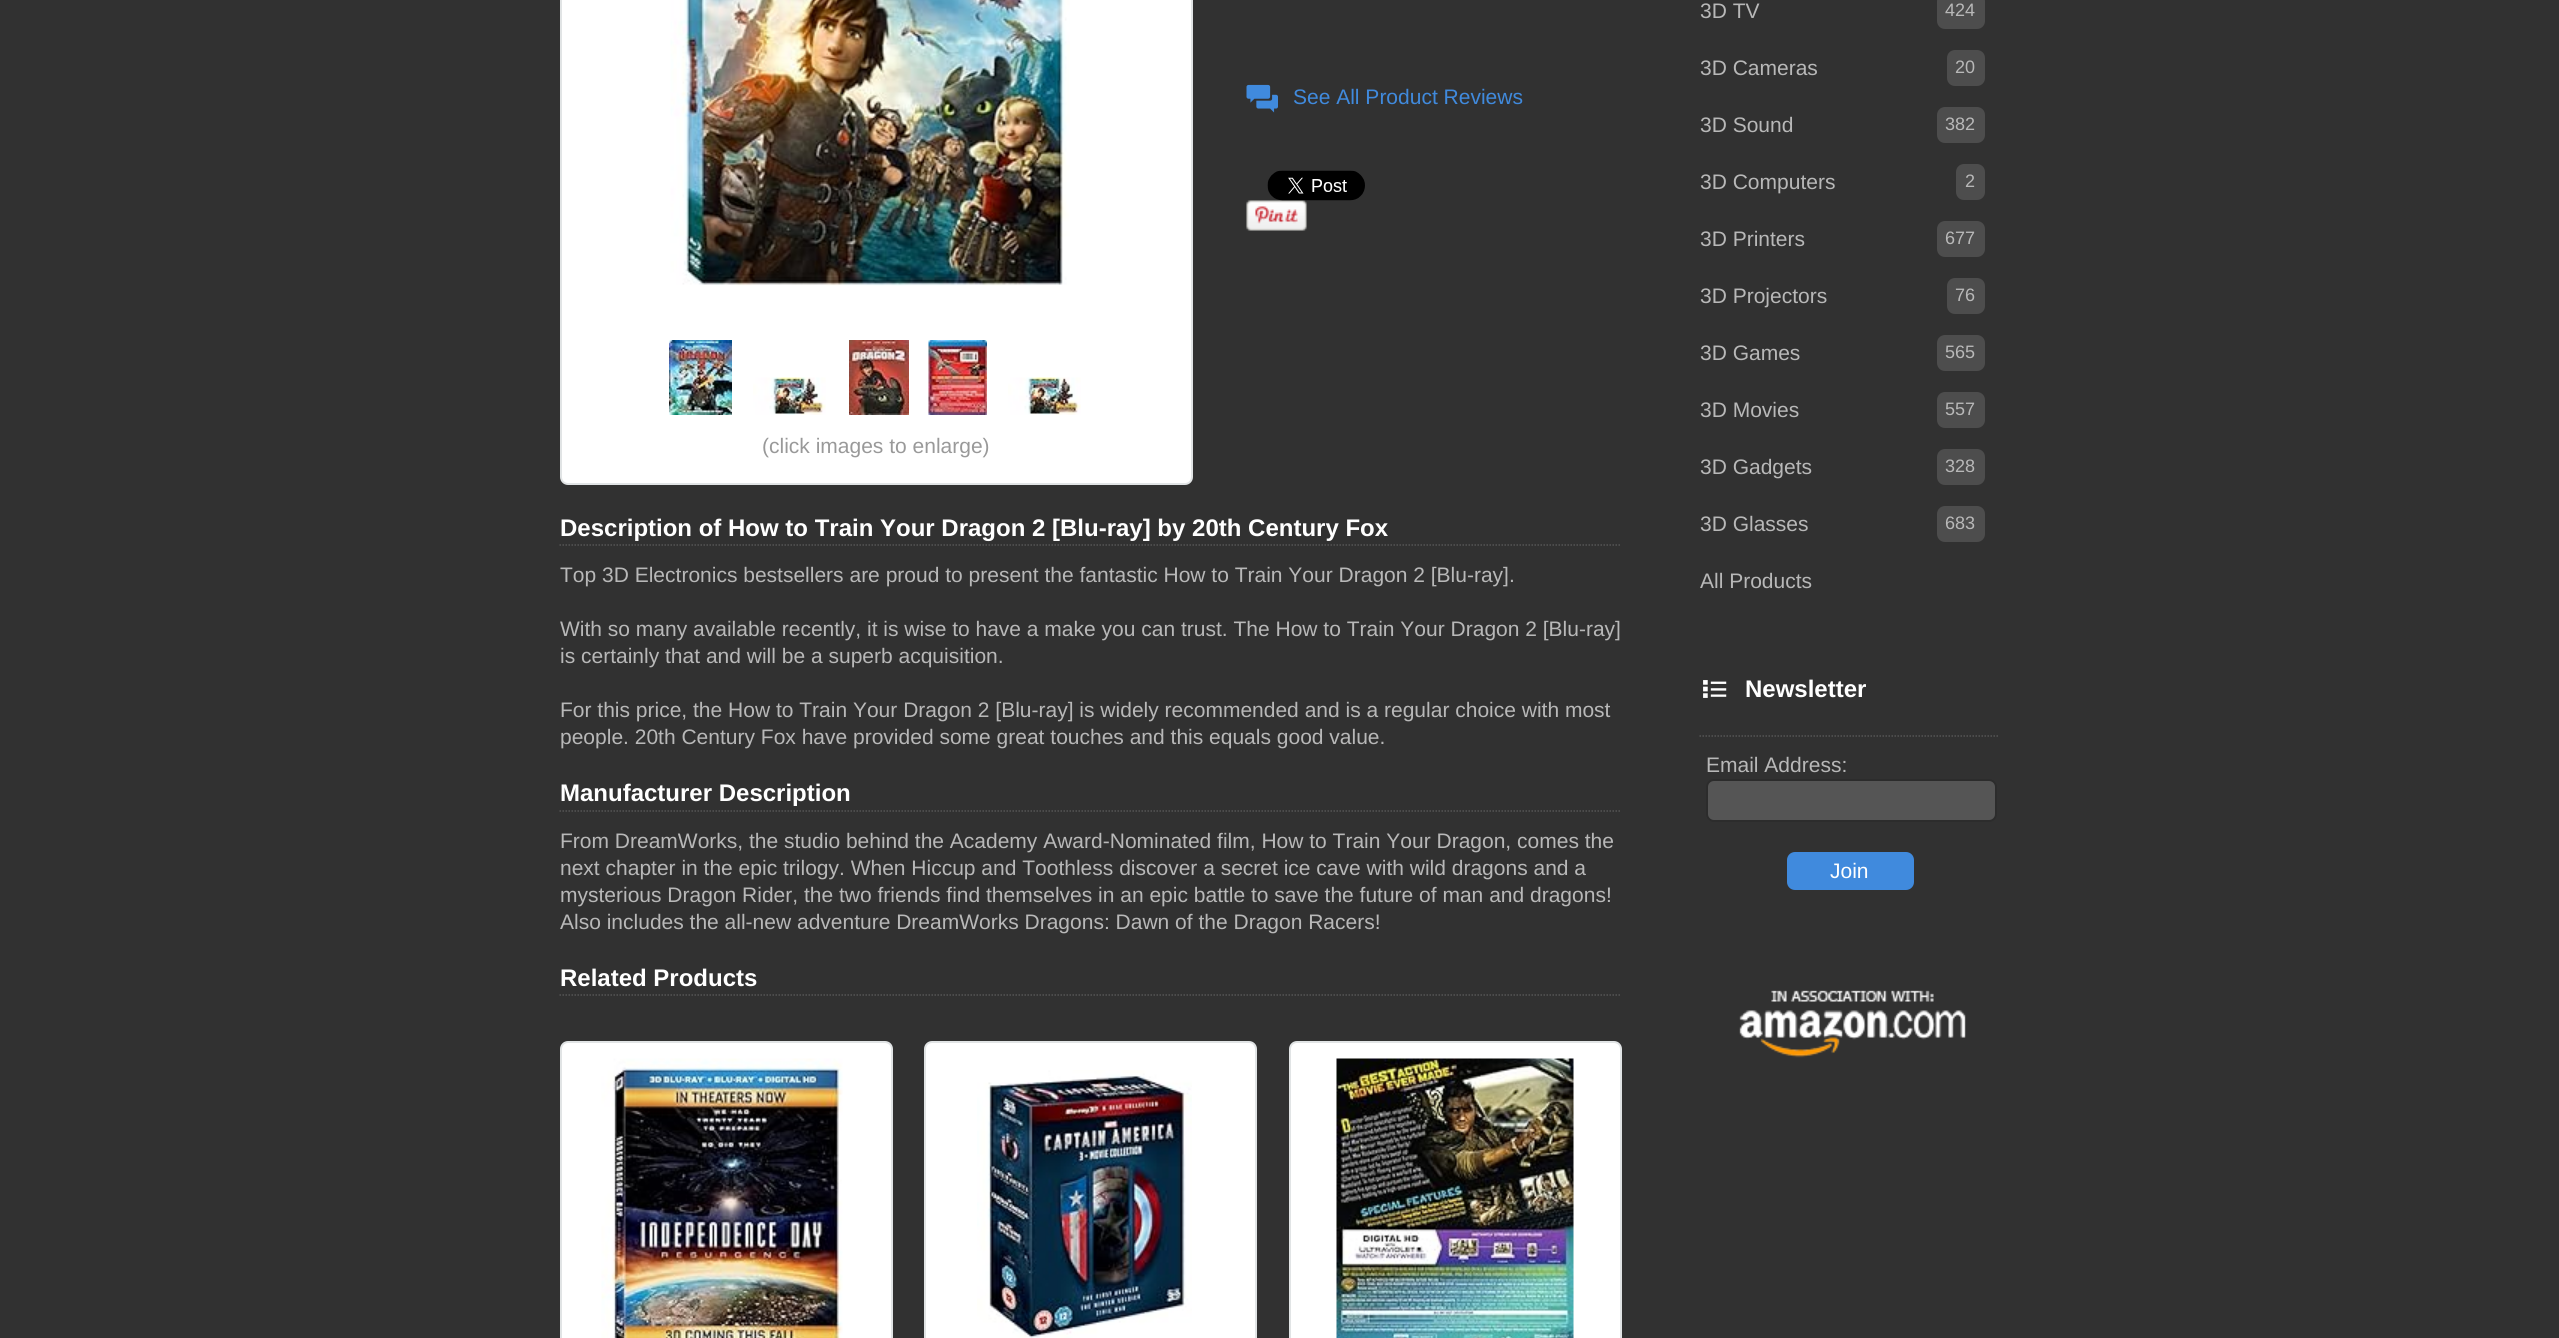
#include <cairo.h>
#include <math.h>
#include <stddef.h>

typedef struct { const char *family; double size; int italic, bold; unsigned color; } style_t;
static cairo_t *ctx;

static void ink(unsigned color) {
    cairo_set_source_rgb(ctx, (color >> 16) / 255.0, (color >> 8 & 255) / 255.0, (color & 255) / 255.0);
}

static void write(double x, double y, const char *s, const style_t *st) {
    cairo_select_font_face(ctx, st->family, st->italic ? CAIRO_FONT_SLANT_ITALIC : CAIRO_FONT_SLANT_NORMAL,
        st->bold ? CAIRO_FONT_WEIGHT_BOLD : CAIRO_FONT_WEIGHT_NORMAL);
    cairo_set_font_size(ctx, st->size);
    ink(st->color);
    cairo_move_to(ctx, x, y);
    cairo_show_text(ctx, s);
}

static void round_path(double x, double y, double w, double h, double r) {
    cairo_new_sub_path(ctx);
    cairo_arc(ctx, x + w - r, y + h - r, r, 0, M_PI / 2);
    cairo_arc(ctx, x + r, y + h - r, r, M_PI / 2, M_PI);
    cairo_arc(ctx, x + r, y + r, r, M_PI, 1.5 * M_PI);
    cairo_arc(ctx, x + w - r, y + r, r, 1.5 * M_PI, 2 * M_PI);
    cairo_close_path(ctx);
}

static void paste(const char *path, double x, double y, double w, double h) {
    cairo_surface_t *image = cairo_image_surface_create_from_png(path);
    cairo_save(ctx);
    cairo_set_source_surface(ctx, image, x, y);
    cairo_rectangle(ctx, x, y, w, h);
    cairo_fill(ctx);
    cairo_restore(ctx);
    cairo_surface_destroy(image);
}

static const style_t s1 = {"Liberation Sans", 21, 0, 0, 0x408add};
static const style_t s2 = {"Liberation Sans", 21, 0, 0, 0x999999};
static const style_t s3 = {"Liberation Sans", 24, 0, 1, 0xffffff};
static const style_t s4 = {"Liberation Sans", 21, 0, 0, 0xb8b8b8};
static const style_t s5 = {"Liberation Sans", 18, 0, 0, 0xb8b8b8};
static const style_t s6 = {"Liberation Sans", 21, 0, 0, 0xffffff};

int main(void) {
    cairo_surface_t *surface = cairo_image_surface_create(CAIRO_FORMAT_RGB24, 2559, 1338);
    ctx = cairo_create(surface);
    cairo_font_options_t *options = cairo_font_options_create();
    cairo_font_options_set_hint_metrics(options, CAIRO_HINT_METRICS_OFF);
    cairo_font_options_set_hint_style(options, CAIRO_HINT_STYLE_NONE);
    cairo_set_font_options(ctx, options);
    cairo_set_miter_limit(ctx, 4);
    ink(0x313131);
    cairo_paint(ctx);
    paste("pic1.png", 1246, 84, 32, 29);
    write(1293, 104, "See All Product Reviews", &s1);
    paste("pic3.png", 1246, 200, 61, 31);
    paste("pic2.png", 1267, 170, 98, 31);
    ink(0xffffff);
    round_path(561, -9, 631, 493, 7);
    cairo_fill_preserve(ctx);
    ink(0xe1e4e5);
    cairo_stroke(ctx);
    paste("pic4.png", 670, 0, 400, 286);
    paste("pic5.png", 669, 340, 63, 75);
    paste("pic6.png", 753, 377, 73, 38);
    paste("pic7.png", 849, 340, 60, 75);
    paste("pic8.png", 928, 340, 59, 75);
    paste("pic9.png", 1008, 377, 73, 38);
    write(762, 453, "(click images to enlarge)", &s2);
    cairo_new_path(ctx);
    cairo_move_to(ctx, 559.5, 545);
    cairo_line_to(ctx, 1621.5, 545);
    ink(0x555555);
    cairo_set_line_width(ctx, 1.5);
    cairo_set_dash(ctx, (double[]){1.5, 1.5}, 2, 0);
    cairo_stroke(ctx);
    write(560, 536, "Description of How to Train Your Dragon 2 [Blu-ray] by 20th Century Fox", &s3);
    write(560, 582, "Top 3D Electronics bestsellers are proud to present the fantastic How to Train Your Dragon 2 [Blu-ray].", &s4);
    write(560, 636, "With so many available recently, it is wise to have a make you can trust. The How to Train Your Dragon 2 [Blu-ray]", &s4);
    write(560, 663, "is certainly that and will be a superb acquisition.", &s4);
    write(560, 717, "For this price, the How to Train Your Dragon 2 [Blu-ray] is widely recommended and is a regular choice with most", &s4);
    write(560, 744, "people. 20th Century Fox have provided some great touches and this equals good value.", &s4);
    cairo_new_path(ctx);
    cairo_move_to(ctx, 559.5, 811);
    cairo_line_to(ctx, 1621.5, 811);
    ink(0x555555);
    cairo_stroke(ctx);
    write(560, 801, "Manufacturer Description", &s3);
    write(560, 848, "From DreamWorks, the studio behind the Academy Award-Nominated film, How to Train Your Dragon, comes the", &s4);
    write(560, 875, "next chapter in the epic trilogy. When Hiccup and Toothless discover a secret ice cave with wild dragons and a", &s4);
    write(560, 902, "mysterious Dragon Rider, the two friends find themselves in an epic battle to save the future of man and dragons!", &s4);
    write(560, 929, "Also includes the all-new adventure DreamWorks Dragons: Dawn of the Dragon Racers!", &s4);
    cairo_new_path(ctx);
    cairo_move_to(ctx, 559.5, 995);
    cairo_line_to(ctx, 1621.5, 995);
    ink(0x555555);
    cairo_stroke(ctx);
    write(560, 986, "Related Products", &s3);
    round_path(561, 1042, 331, 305, 7);
    cairo_fill_preserve(ctx);
    ink(0xe1e4e5);
    cairo_set_line_width(ctx, 2);
    cairo_set_dash(ctx, NULL, 0, 0);
    cairo_stroke(ctx);
    paste("pic10.png", 601, 1058, 242, 280);
    ink(0xffffff);
    round_path(925, 1042, 331, 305, 7);
    cairo_fill_preserve(ctx);
    ink(0xe1e4e5);
    cairo_stroke(ctx);
    paste("pic11.png", 977, 1070, 215, 268);
    ink(0xffffff);
    round_path(1290, 1042, 331, 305, 7);
    cairo_fill_preserve(ctx);
    ink(0xe1e4e5);
    cairo_stroke(ctx);
    paste("pic12.png", 1336, 1058, 238, 280);
    write(1700, 18, "3D TV", &s4);
    ink(0x4d4d4d);
    round_path(1938, -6, 46, 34, 7);
    cairo_fill_preserve(ctx);
    cairo_stroke(ctx);
    write(1945, 16, "424", &s5);
    write(1700, 75, "3D Cameras", &s4);
    ink(0x4d4d4d);
    round_path(1948, 51, 36, 34, 7);
    cairo_fill_preserve(ctx);
    cairo_stroke(ctx);
    write(1955, 73, "20", &s5);
    write(1700, 132, "3D Sound", &s4);
    ink(0x4d4d4d);
    round_path(1938, 108, 46, 34, 7);
    cairo_fill_preserve(ctx);
    cairo_stroke(ctx);
    write(1945, 130, "382", &s5);
    write(1700, 189, "3D Computers", &s4);
    ink(0x4d4d4d);
    round_path(1957, 165, 27, 34, 7);
    cairo_fill_preserve(ctx);
    cairo_stroke(ctx);
    write(1965, 187, "2", &s5);
    write(1700, 246, "3D Printers", &s4);
    ink(0x4d4d4d);
    round_path(1938, 222, 46, 34, 7);
    cairo_fill_preserve(ctx);
    cairo_stroke(ctx);
    write(1945, 244, "677", &s5);
    write(1700, 303, "3D Projectors", &s4);
    ink(0x4d4d4d);
    round_path(1948, 279, 36, 34, 7);
    cairo_fill_preserve(ctx);
    cairo_stroke(ctx);
    write(1955, 301, "76", &s5);
    write(1700, 360, "3D Games", &s4);
    ink(0x4d4d4d);
    round_path(1938, 336, 46, 34, 7);
    cairo_fill_preserve(ctx);
    cairo_stroke(ctx);
    write(1945, 358, "565", &s5);
    write(1700, 417, "3D Movies", &s4);
    ink(0x4d4d4d);
    round_path(1938, 393, 46, 34, 7);
    cairo_fill_preserve(ctx);
    cairo_stroke(ctx);
    write(1945, 415, "557", &s5);
    write(1700, 474, "3D Gadgets", &s4);
    ink(0x4d4d4d);
    round_path(1938, 450, 46, 34, 7);
    cairo_fill_preserve(ctx);
    cairo_stroke(ctx);
    write(1945, 472, "328", &s5);
    write(1700, 531, "3D Glasses", &s4);
    ink(0x4d4d4d);
    round_path(1938, 507, 46, 34, 7);
    cairo_fill_preserve(ctx);
    cairo_stroke(ctx);
    write(1945, 529, "683", &s5);
    write(1700, 588, "All Products", &s4);
    cairo_new_path(ctx);
    cairo_move_to(ctx, 1699.5, 736);
    cairo_line_to(ctx, 1999.5, 736);
    ink(0x555555);
    cairo_set_line_width(ctx, 1.5);
    cairo_set_dash(ctx, (double[]){1.5, 1.5}, 2, 0);
    cairo_stroke(ctx);
    paste("pic13.png", 1703, 680, 24, 18);
    write(1745, 697, "Newsletter", &s3);
    write(1706, 772, "Email Address:", &s4);
    ink(0x555555);
    round_path(1707, 780, 289, 41, 7);
    cairo_fill_preserve(ctx);
    ink(0x2c2c2c);
    cairo_set_line_width(ctx, 2);
    cairo_set_dash(ctx, NULL, 0, 0);
    cairo_stroke(ctx);
    ink(0x408add);
    round_path(1788, 853, 125, 36, 7);
    cairo_fill_preserve(ctx);
    cairo_stroke(ctx);
    write(1830, 878, "Join", &s6);
    paste("pic14.png", 1739, 990, 227, 68);
    cairo_surface_write_to_png(surface, "screenshot.png");
    cairo_font_options_destroy(options);
    cairo_destroy(ctx);
    cairo_surface_destroy(surface);
    return 0;
}
